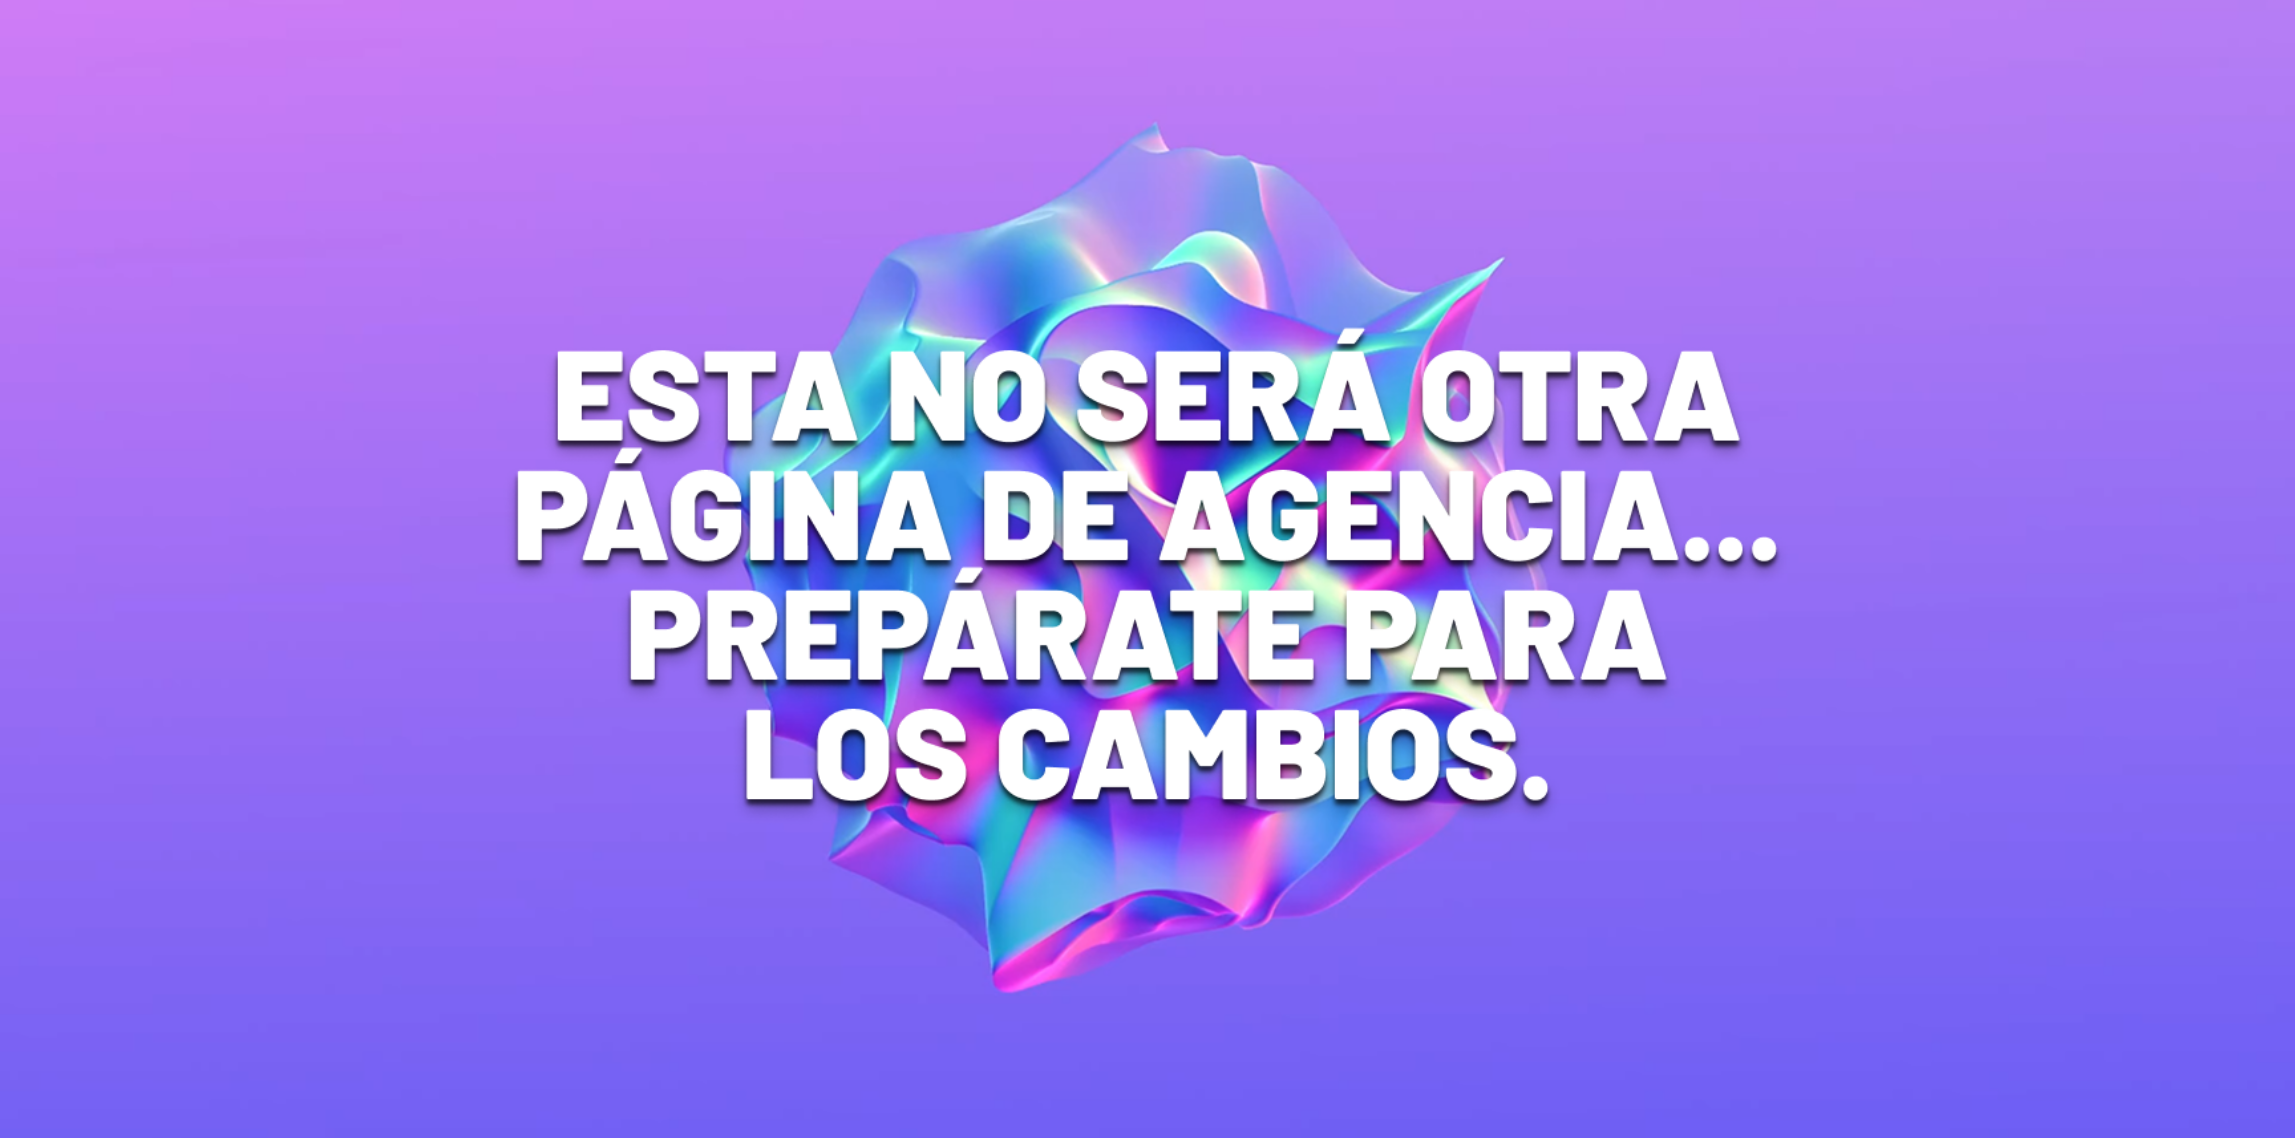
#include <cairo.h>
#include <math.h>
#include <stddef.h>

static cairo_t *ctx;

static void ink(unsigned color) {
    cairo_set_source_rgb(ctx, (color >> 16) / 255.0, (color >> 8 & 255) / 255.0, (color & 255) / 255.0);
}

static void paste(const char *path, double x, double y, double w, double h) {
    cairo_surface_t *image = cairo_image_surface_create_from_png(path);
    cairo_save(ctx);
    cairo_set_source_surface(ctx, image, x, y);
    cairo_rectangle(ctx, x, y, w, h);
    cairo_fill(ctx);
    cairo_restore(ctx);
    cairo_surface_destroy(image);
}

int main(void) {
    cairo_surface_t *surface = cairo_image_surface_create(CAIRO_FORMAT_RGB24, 2295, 1138);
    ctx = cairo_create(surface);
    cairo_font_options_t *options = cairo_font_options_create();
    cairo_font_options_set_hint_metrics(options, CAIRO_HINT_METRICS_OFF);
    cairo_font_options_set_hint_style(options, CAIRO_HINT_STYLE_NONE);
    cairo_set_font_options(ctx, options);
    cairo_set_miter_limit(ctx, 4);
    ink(0xffffff);
    cairo_paint(ctx);
    paste("pic1.png", 0, 0, 2295, 1138);
    cairo_surface_write_to_png(surface, "screenshot.png");
    cairo_font_options_destroy(options);
    cairo_destroy(ctx);
    cairo_surface_destroy(surface);
    return 0;
}
